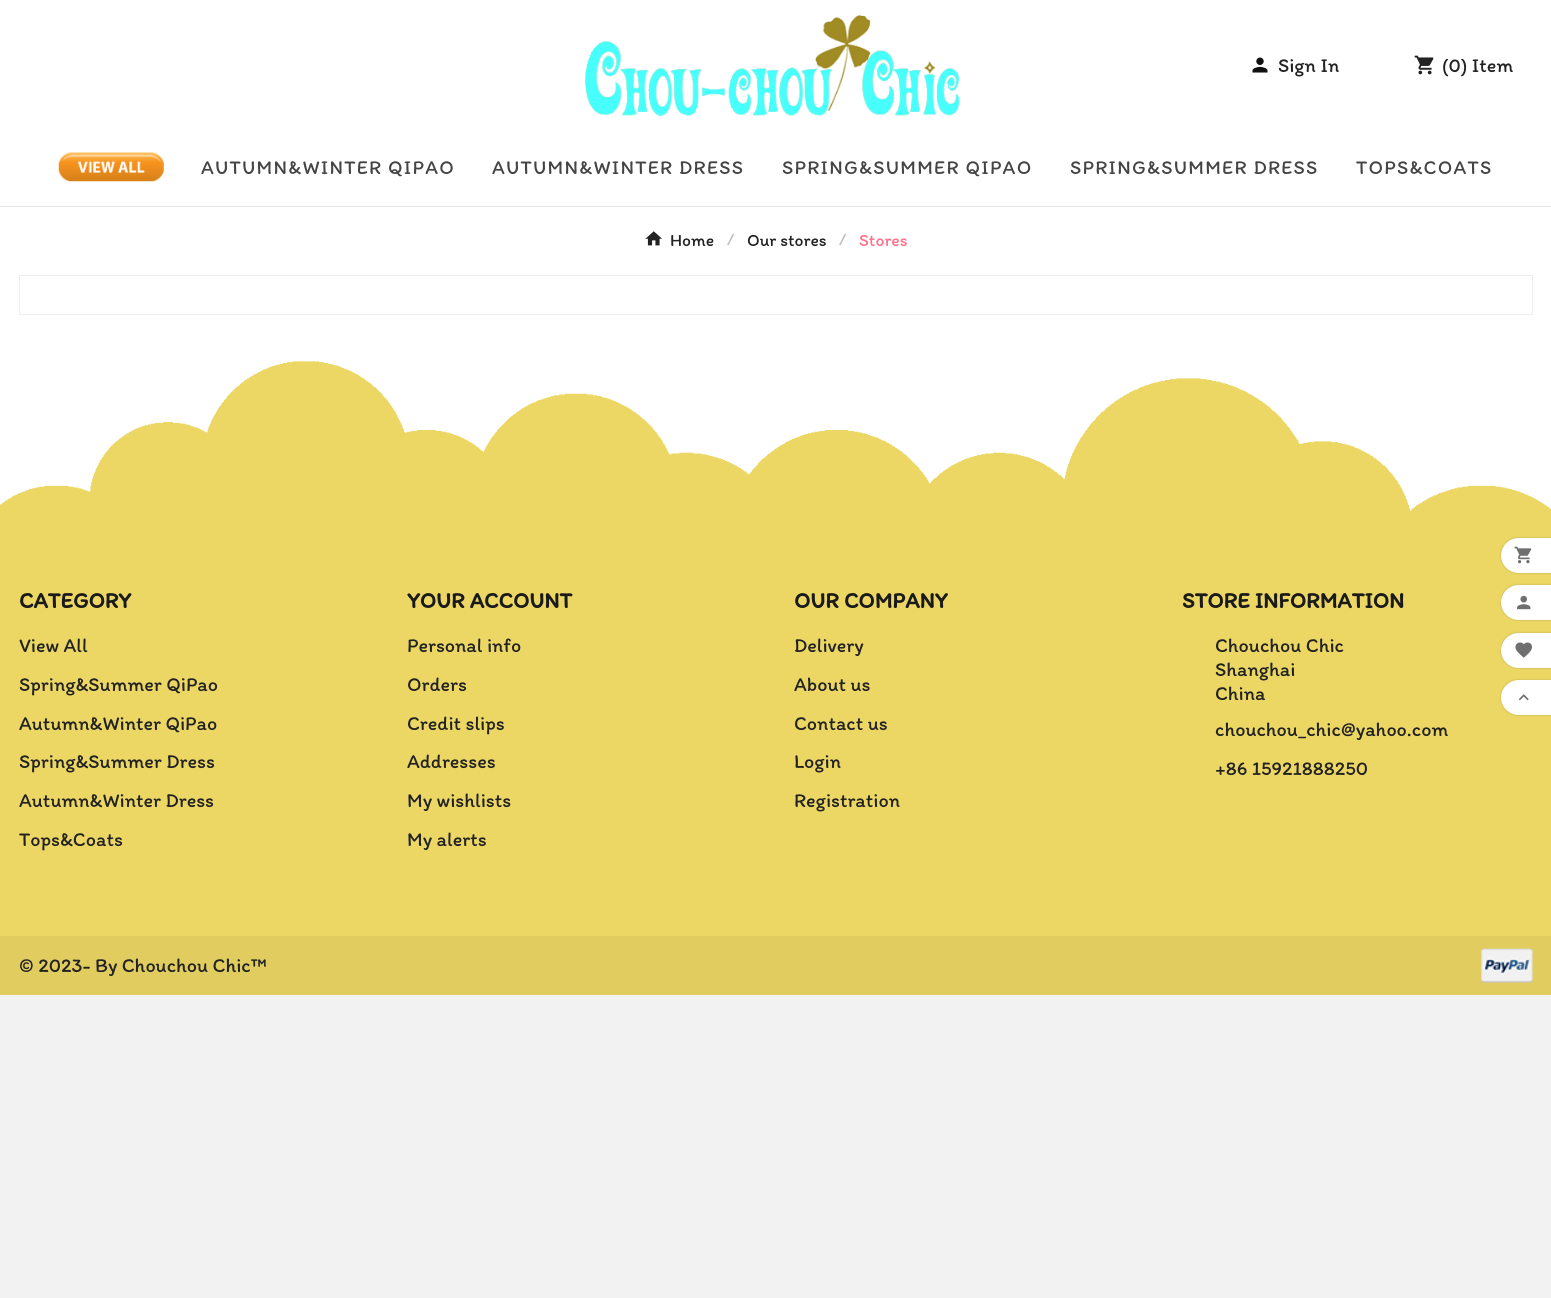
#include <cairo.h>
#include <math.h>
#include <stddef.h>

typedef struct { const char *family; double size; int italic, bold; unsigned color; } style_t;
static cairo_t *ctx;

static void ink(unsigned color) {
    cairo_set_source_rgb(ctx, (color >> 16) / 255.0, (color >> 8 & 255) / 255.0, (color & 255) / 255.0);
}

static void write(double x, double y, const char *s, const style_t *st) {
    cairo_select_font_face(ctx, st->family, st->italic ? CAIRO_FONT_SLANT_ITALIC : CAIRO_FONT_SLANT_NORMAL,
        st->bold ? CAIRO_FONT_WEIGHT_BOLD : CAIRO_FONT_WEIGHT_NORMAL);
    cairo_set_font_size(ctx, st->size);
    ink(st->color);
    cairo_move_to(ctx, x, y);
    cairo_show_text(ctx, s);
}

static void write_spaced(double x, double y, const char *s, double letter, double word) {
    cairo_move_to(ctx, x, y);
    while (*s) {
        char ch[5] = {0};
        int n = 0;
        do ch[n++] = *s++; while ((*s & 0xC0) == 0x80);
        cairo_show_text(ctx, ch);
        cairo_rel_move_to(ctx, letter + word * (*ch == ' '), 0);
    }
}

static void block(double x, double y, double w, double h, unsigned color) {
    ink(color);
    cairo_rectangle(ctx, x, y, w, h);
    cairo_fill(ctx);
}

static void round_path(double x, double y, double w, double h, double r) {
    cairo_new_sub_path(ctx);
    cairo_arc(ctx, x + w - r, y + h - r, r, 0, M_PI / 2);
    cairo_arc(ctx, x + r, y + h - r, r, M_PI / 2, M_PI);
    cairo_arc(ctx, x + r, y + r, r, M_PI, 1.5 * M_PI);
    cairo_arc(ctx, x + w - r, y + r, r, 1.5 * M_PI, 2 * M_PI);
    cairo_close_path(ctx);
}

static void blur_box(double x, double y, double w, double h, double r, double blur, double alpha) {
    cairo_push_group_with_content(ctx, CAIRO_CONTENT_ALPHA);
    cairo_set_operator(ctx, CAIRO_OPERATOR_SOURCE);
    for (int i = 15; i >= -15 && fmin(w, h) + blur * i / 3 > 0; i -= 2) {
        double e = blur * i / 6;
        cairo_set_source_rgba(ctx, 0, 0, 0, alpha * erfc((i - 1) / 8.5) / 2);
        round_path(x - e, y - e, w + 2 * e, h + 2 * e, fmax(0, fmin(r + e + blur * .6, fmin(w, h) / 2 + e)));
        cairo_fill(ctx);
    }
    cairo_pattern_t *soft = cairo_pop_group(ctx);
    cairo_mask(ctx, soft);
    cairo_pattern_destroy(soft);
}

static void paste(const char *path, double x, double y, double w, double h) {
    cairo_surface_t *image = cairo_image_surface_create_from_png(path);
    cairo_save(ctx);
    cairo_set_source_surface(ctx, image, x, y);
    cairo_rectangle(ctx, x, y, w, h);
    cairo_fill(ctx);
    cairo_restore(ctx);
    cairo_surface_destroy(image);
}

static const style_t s1 = {"Itim", 20, 0, 0, 0x222222};
static const style_t s2 = {"Itim", 17.5, 0, 0, 0x222222};
static const style_t s3 = {"Itim", 17.5, 0, 0, 0xbdbdbd};
static const style_t s4 = {"Itim", 17.5, 0, 0, 0xff708a};
static const style_t s5 = {"Itim", 22.5, 0, 1, 0x1a1a1a};

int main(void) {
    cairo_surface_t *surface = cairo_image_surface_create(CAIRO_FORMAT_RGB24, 1551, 1298);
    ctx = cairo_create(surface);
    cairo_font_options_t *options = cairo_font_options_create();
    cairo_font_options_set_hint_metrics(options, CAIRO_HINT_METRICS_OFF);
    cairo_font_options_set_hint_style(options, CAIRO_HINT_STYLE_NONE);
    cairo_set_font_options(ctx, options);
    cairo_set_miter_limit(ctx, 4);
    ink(0xf2f2f2);
    cairo_paint(ctx);
    block(0, 0, 1551, 353, 0xffffff);
    block(0, 206, 1551, 1, 0xe5e5e5);
    paste("pic1.png", 585, 15, 375, 102);
    paste("pic2.png", 1252, 57, 16, 16);
    write(1278, 72, "Sign In", &s1);
    paste("pic3.png", 1414, 55, 20, 20);
    write(1442, 72, "(0) Item", &s1);
    paste("pic4.png", 58, 152, 106, 30);
    ink(0x444444);
    write_spaced(201, 174, "AUTUMN&WINTER QIPAO", 1.25, 0);
    write_spaced(492, 174, "AUTUMN&WINTER DRESS", 1.25, 0);
    write_spaced(782, 174, "SPRING&SUMMER QIPAO", 1.25, 0);
    write_spaced(1070, 174, "SPRING&SUMMER DRESS", 1.25, 0);
    write_spaced(1356, 174, "TOPS&COATS", 1.25, 0);
    paste("pic5.png", 645, 231, 17, 15);
    write(670, 246, "Home", &s2);
    write(727, 245, "/", &s3);
    write(747, 246, "Our stores", &s2);
    write(839, 245, "/", &s3);
    write(859, 246, "Stores", &s4);
    cairo_rectangle(ctx, 19.5, 275.5, 1513, 39);
    ink(0xeeeeee);
    cairo_set_line_width(ctx, 1);
    cairo_stroke(ctx);
    block(0, 361, 1551, 575, 0xecd764);
    paste("pic6.png", 0, 353, 1551, 158);
    write(19, 608, "CATEGORY", &s5);
    write(19, 652, "View All", &s1);
    write(19, 691, "Spring&Summer QiPao", &s1);
    write(19, 730, "Autumn&Winter QiPao", &s1);
    write(19, 768, "Spring&Summer Dress", &s1);
    write(19, 807, "Autumn&Winter Dress", &s1);
    write(19, 846, "Tops&Coats", &s1);
    write(407, 608, "YOUR ACCOUNT", &s5);
    write(407, 652, "Personal info", &s1);
    write(407, 691, "Orders", &s1);
    write(407, 730, "Credit slips", &s1);
    write(407, 768, "Addresses", &s1);
    write(407, 807, "My wishlists", &s1);
    write(407, 846, "My alerts", &s1);
    write(794, 608, "OUR COMPANY", &s5);
    write(794, 652, "Delivery", &s1);
    write(794, 691, "About us", &s1);
    write(794, 730, "Contact us", &s1);
    write(794, 768, "Login", &s1);
    write(794, 807, "Registration", &s1);
    write(1182, 608, "STORE INFORMATION", &s5);
    write(1215, 652, "Chouchou Chic", &s1);
    write(1215, 676, "Shanghai", &s1);
    write(1215, 700, "China", &s1);
    write(1215, 736, "chouchou_chic@yahoo.com", &s1);
    write(1215, 775, "+86 15921888250", &s1);
    ink(0x000000);
    blur_box(1501, 538, 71, 35, 17.5, 1, 0.2);
    ink(0xffffff);
    cairo_new_path(ctx);
    cairo_move_to(ctx, 1518.5, 538);
    cairo_line_to(ctx, 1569, 538);
    cairo_line_to(ctx, 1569, 573);
    cairo_line_to(ctx, 1518.5, 573);
    cairo_curve_to(ctx, 1509, 573, 1501, 565, 1501, 555.5);
    cairo_curve_to(ctx, 1501, 546, 1509, 538, 1518.5, 538);
    cairo_close_path(ctx);
    cairo_fill(ctx);
    paste("pic7.png", 1514, 546, 18, 18);
    ink(0x000000);
    blur_box(1501, 585, 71, 35, 17.5, 1, 0.2);
    ink(0xffffff);
    cairo_new_path(ctx);
    cairo_move_to(ctx, 1518.5, 585);
    cairo_line_to(ctx, 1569, 585);
    cairo_line_to(ctx, 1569, 620);
    cairo_line_to(ctx, 1518.5, 620);
    cairo_curve_to(ctx, 1509, 620, 1501, 612, 1501, 602.5);
    cairo_curve_to(ctx, 1501, 593, 1509, 585, 1518.5, 585);
    cairo_close_path(ctx);
    cairo_fill(ctx);
    paste("pic8.png", 1517, 595, 14, 15);
    ink(0x000000);
    blur_box(1501, 633, 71, 35, 17.5, 1, 0.2);
    ink(0xffffff);
    cairo_new_path(ctx);
    cairo_move_to(ctx, 1518.5, 633);
    cairo_line_to(ctx, 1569, 633);
    cairo_line_to(ctx, 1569, 668);
    cairo_line_to(ctx, 1518.5, 668);
    cairo_curve_to(ctx, 1509, 668, 1501, 660, 1501, 650.5);
    cairo_curve_to(ctx, 1501, 641, 1509, 633, 1518.5, 633);
    cairo_close_path(ctx);
    cairo_fill(ctx);
    paste("pic9.png", 1515, 642, 17, 16);
    ink(0x000000);
    blur_box(1501, 680, 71, 35, 17.5, 1, 0.2);
    ink(0xffffff);
    cairo_new_path(ctx);
    cairo_move_to(ctx, 1518.5, 680);
    cairo_line_to(ctx, 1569, 680);
    cairo_line_to(ctx, 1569, 715);
    cairo_line_to(ctx, 1518.5, 715);
    cairo_curve_to(ctx, 1509, 715, 1501, 707, 1501, 697.5);
    cairo_curve_to(ctx, 1501, 688, 1509, 680, 1518.5, 680);
    cairo_close_path(ctx);
    cairo_fill(ctx);
    paste("pic10.png", 1518, 694, 11, 7);
    block(0, 936, 1551, 59, 0xe0cc5f);
    write(19, 972, "© 2023- By Chouchou Chic™", &s1);
    paste("pic11.png", 1481, 948, 52, 35);
    cairo_surface_write_to_png(surface, "screenshot.png");
    cairo_font_options_destroy(options);
    cairo_destroy(ctx);
    cairo_surface_destroy(surface);
    return 0;
}
